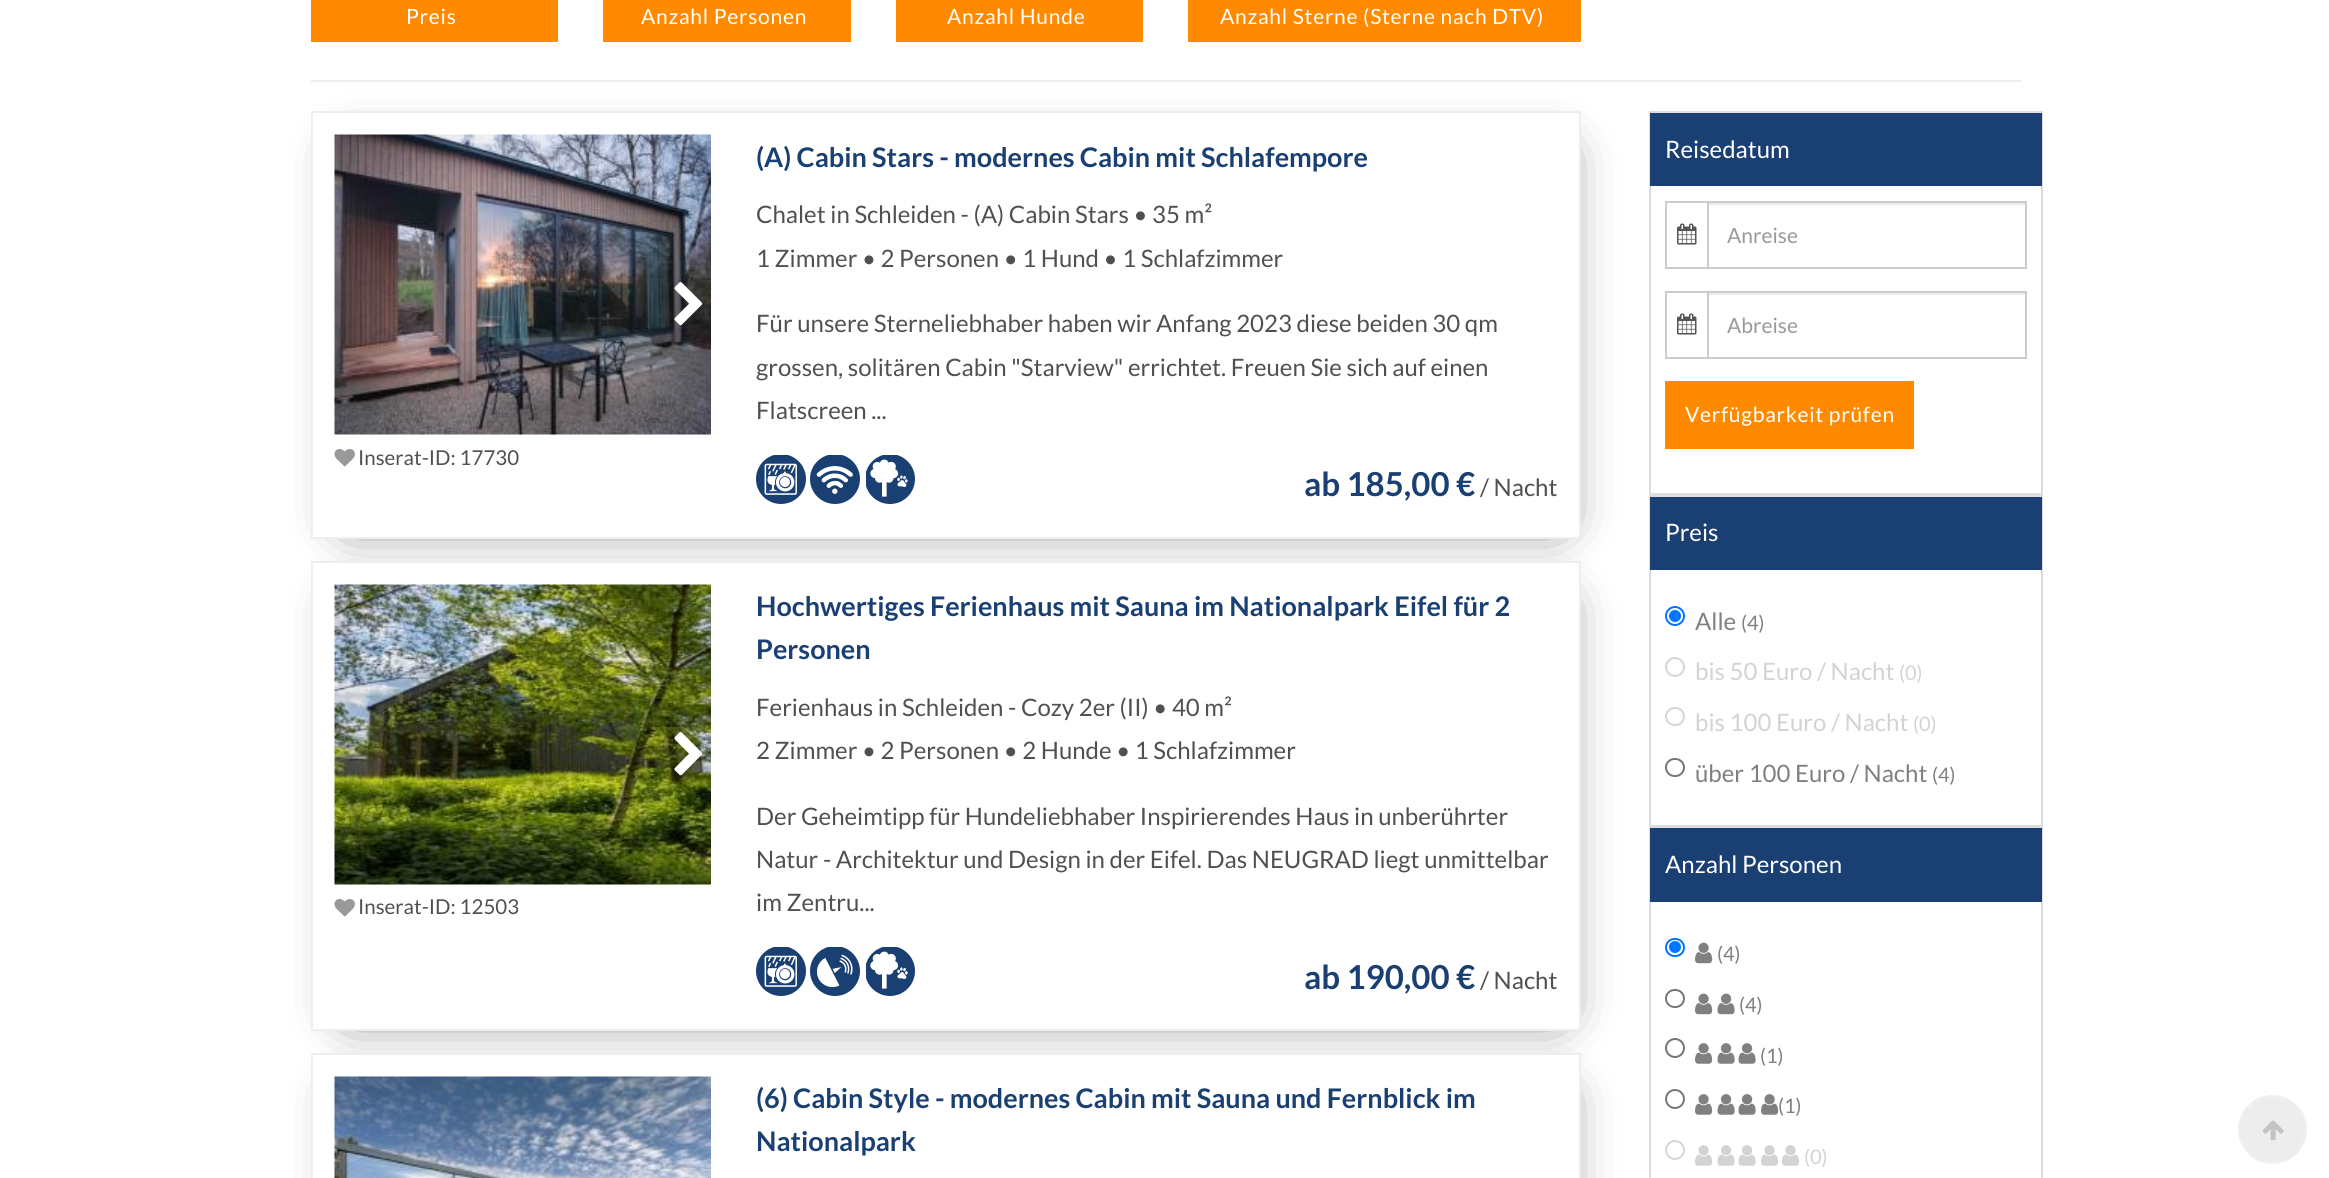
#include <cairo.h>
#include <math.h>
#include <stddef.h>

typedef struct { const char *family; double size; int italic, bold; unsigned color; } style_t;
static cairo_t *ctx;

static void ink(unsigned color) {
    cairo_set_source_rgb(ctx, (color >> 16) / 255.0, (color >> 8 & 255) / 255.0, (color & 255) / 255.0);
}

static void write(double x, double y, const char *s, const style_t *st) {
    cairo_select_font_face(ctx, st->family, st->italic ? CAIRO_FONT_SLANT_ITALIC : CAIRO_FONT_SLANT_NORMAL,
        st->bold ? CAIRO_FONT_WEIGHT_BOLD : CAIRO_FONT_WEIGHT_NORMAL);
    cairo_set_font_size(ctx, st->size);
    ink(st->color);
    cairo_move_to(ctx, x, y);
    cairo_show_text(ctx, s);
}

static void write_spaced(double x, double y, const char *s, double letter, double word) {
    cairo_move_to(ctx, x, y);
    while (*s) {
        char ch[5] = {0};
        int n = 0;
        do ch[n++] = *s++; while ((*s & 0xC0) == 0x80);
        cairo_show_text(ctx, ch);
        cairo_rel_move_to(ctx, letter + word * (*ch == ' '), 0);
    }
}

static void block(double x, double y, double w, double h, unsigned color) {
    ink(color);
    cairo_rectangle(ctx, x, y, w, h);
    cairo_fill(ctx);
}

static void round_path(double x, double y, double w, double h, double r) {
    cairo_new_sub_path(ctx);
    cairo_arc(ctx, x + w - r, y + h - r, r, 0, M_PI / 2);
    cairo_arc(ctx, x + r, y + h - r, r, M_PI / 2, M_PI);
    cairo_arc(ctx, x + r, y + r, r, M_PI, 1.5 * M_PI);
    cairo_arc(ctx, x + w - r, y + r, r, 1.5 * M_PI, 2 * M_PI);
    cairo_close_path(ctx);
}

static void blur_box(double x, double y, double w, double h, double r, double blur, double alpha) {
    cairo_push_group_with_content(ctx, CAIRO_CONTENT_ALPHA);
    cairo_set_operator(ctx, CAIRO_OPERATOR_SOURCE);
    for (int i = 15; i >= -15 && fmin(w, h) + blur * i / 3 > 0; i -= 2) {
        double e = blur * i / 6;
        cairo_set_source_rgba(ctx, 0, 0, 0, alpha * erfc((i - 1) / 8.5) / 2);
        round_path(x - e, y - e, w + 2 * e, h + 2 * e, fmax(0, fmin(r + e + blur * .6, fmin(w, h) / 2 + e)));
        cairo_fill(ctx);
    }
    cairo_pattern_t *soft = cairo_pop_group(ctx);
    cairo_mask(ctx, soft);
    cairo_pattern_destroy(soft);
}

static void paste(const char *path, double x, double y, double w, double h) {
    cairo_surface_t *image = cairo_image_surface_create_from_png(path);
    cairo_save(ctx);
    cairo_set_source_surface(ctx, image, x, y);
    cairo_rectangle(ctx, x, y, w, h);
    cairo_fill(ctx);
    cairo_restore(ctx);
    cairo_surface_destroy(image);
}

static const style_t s1 = {"Lato", 20.5, 0, 0, 0x505050};
static const style_t s2 = {"Lato", 27, 0, 1, 0x193f73};
static const style_t s3 = {"Lato", 24, 0, 0, 0x505050};
static const style_t s4 = {"Lato", 33, 0, 1, 0x193f73};
static const style_t s5 = {"Lato", 24, 0, 0, 0xffffff};
static const style_t s6 = {"Lato", 21, 0, 0, 0x999999};
static const style_t s7 = {"Lato", 24, 0, 0, 0x808080};
static const style_t s8 = {"Lato", 20, 0, 0, 0x808080};
static const style_t s9 = {"Lato", 24, 0, 0, 0xd3d3d3};
static const style_t s10 = {"Lato", 20, 0, 0, 0xd3d3d3};

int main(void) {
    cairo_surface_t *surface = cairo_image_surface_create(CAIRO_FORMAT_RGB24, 2329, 1178);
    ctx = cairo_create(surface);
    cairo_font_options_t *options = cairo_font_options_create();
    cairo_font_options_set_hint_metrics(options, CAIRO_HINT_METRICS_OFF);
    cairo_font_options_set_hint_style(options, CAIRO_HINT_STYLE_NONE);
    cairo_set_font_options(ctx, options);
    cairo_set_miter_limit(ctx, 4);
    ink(0xffffff);
    cairo_paint(ctx);
    block(311, 0, 247, 42, 0xff8a00);
    cairo_select_font_face(ctx, "Lato", CAIRO_FONT_SLANT_NORMAL, CAIRO_FONT_WEIGHT_NORMAL);
    cairo_set_font_size(ctx, 21);
    ink(0xffffff);
    write_spaced(406, 24, "Preis", 0.75, 0);
    block(603, 0, 248, 42, 0xff8a00);
    ink(0xffffff);
    write_spaced(641, 24, "Anzahl Personen", 0.75, 0);
    block(896, 0, 247, 42, 0xff8a00);
    ink(0xffffff);
    write_spaced(947, 24, "Anzahl Hunde", 0.75, 0);
    block(1188, 0, 393, 42, 0xff8a00);
    ink(0xffffff);
    write_spaced(1220, 24, "Anzahl Sterne (Sterne nach DTV)", 0.75, 0);
    block(311, 80, 1710, 2, 0xeeeeee);
    ink(0x000000);
    blur_box(350, 155, 1207, 364, 0, 26, 0.75);
    ink(0xffffff);
    cairo_rectangle(ctx, 312, 112, 1268, 426);
    cairo_fill_preserve(ctx);
    ink(0xeeeeee);
    cairo_stroke(ctx);
    paste("pic1.png", 334, 134, 377, 301);
    paste("pic2.png", 674, 282, 29, 44);
    paste("pic3.png", 334, 449, 21, 18);
    write(358, 465, "Inserat-ID: 17730", &s1);
    write(756, 167, "(A) Cabin Stars - modernes Cabin mit Schlafempore", &s2);
    write(756, 223, "Chalet in Schleiden - (A) Cabin Stars • 35 m²", &s3);
    write(756, 267, "1 Zimmer • 2 Personen • 1 Hund • 1 Schlafzimmer", &s3);
    write(756, 332, "Für unsere Sterneliebhaber haben wir Anfang 2023 diese beiden 30 qm", &s3);
    write(756, 376, "grossen, solitären Cabin \"Starview\" errichtet. Freuen Sie sich auf einen", &s3);
    write(756, 419, "Flatscreen ...", &s3);
    paste("pic4.png", 756, 455, 50, 49);
    paste("pic5.png", 810, 455, 50, 49);
    paste("pic6.png", 866, 455, 49, 49);
    write(1304, 496, "ab 185,00 €", &s4);
    write(1480, 496, "/ Nacht", &s3);
    ink(0x000000);
    blur_box(350, 605, 1207, 406, 0, 26, 0.75);
    ink(0xffffff);
    cairo_rectangle(ctx, 312, 562, 1268, 468);
    cairo_fill_preserve(ctx);
    ink(0xeeeeee);
    cairo_stroke(ctx);
    paste("pic7.png", 334, 584, 377, 301);
    paste("pic8.png", 674, 732, 29, 44);
    paste("pic3.png", 334, 899, 21, 18);
    write(358, 914, "Inserat-ID: 12503", &s1);
    write(756, 616, "Hochwertiges Ferienhaus mit Sauna im Nationalpark Eifel für 2", &s2);
    write(756, 659, "Personen", &s2);
    write(756, 716, "Ferienhaus in Schleiden - Cozy 2er (II) • 40 m²", &s3);
    write(756, 759, "2 Zimmer • 2 Personen • 2 Hunde • 1 Schlafzimmer", &s3);
    write(756, 825, "Der Geheimtipp für Hundeliebhaber Inspirierendes Haus in unberührter", &s3);
    write(756, 868, "Natur - Architektur und Design in der Eifel. Das NEUGRAD liegt unmittelbar", &s3);
    write(756, 911, "im Zentru...", &s3);
    paste("pic4.png", 756, 947, 50, 49);
    paste("pic9.png", 810, 947, 50, 49);
    paste("pic6.png", 866, 947, 49, 49);
    write(1304, 989, "ab 190,00 €", &s4);
    write(1480, 989, "/ Nacht", &s3);
    ink(0x000000);
    blur_box(350, 1097, 1207, 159, 0, 26, 0.75);
    ink(0xffffff);
    cairo_rectangle(ctx, 312, 1054, 1268, 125);
    cairo_fill_preserve(ctx);
    ink(0xeeeeee);
    cairo_stroke(ctx);
    paste("pic10.png", 334, 1076, 377, 102);
    write(756, 1108, "(6) Cabin Style - modernes Cabin mit Sauna und Fernblick im", &s2);
    write(756, 1151, "Nationalpark", &s2);
    cairo_rectangle(ctx, 1650, 112, 392, 382);
    ink(0xdddddd);
    cairo_stroke(ctx);
    block(1650, 113, 392, 73, 0x193f73);
    write(1665, 158, "Reisedatum", &s5);
    block(1665, 201, 42, 2, 0xcccccc);
    block(1665, 267, 42, 2, 0xcccccc);
    block(1665, 201, 2, 68, 0xcccccc);
    paste("pic11.png", 1677, 223, 20, 22);
    block(1709, 203, 316, 2, 0xececec);
    cairo_rectangle(ctx, 1708, 202, 318, 66);
    ink(0xcccccc);
    cairo_stroke(ctx);
    write(1727, 243, "Anreise", &s6);
    block(1665, 291, 42, 2, 0xcccccc);
    block(1665, 357, 42, 2, 0xcccccc);
    block(1665, 291, 2, 68, 0xcccccc);
    paste("pic11.png", 1677, 313, 20, 22);
    block(1709, 293, 316, 2, 0xececec);
    cairo_rectangle(ctx, 1708, 292, 318, 66);
    ink(0xcccccc);
    cairo_stroke(ctx);
    write(1727, 333, "Abreise", &s6);
    block(1665, 381, 249, 68, 0xff8a00);
    ink(0xffffff);
    write_spaced(1685, 422, "Verfügbarkeit prüfen", 0.75, 0);
    cairo_rectangle(ctx, 1650, 496, 392, 330);
    ink(0xdddddd);
    cairo_stroke(ctx);
    block(1650, 497, 392, 73, 0x193f73);
    write(1665, 541, "Preis", &s5);
    cairo_new_path(ctx);
    cairo_arc(ctx, 1675, 616, 9, 0, 2 * M_PI);
    ink(0x0075ff);
    cairo_stroke(ctx);
    cairo_arc(ctx, 1675, 616, 6, 0, 2 * M_PI);
    cairo_fill(ctx);
    write(1695, 630, "Alle", &s7);
    write(1741, 630, "(4)", &s8);
    cairo_new_path(ctx);
    cairo_arc(ctx, 1675, 667, 9, 0, 2 * M_PI);
    ink(0xd6d6d6);
    cairo_stroke(ctx);
    write(1695, 680, "bis 50 Euro / Nacht", &s9);
    write(1899, 680, "(0)", &s10);
    round_path(1666, 708, 18, 17, 8.5);
    ink(0xd6d6d6);
    cairo_stroke(ctx);
    write(1695, 731, "bis 100 Euro / Nacht", &s9);
    write(1913, 731, "(0)", &s10);
    round_path(1666, 759, 18, 17, 8.5);
    ink(0x767676);
    cairo_stroke(ctx);
    write(1695, 782, "über 100 Euro / Nacht", &s7);
    write(1932, 782, "(4)", &s8);
    cairo_rectangle(ctx, 1650, 828, 392, 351);
    ink(0xdddddd);
    cairo_stroke(ctx);
    block(1650, 828, 392, 74, 0x193f73);
    write(1665, 873, "Anzahl Personen", &s5);
    round_path(1666, 939, 18, 17, 8.5);
    ink(0x0075ff);
    cairo_stroke(ctx);
    cairo_arc(ctx, 1675, 947, 6, 0, 2 * M_PI);
    cairo_fill(ctx);
    paste("pic12.png", 1695, 942, 18, 22);
    write(1717, 961, "(4)", &s8);
    round_path(1666, 990, 18, 17, 8.5);
    ink(0x767676);
    cairo_stroke(ctx);
    paste("pic12.png", 1695, 993, 18, 22);
    paste("pic13.png", 1717, 993, 18, 22);
    write(1739, 1012, "(4)", &s8);
    cairo_new_path(ctx);
    cairo_arc(ctx, 1675, 1048, 9, 0, 2 * M_PI);
    ink(0x767676);
    cairo_stroke(ctx);
    paste("pic14.png", 1695, 1043, 18, 21);
    paste("pic15.png", 1717, 1043, 18, 21);
    paste("pic15.png", 1738, 1043, 18, 21);
    write(1760, 1063, "(1)", &s8);
    cairo_new_path(ctx);
    cairo_arc(ctx, 1675, 1099, 9, 0, 2 * M_PI);
    ink(0x767676);
    cairo_stroke(ctx);
    paste("pic14.png", 1695, 1094, 18, 21);
    paste("pic15.png", 1717, 1094, 18, 21);
    paste("pic15.png", 1738, 1094, 18, 21);
    paste("pic14.png", 1761, 1094, 18, 21);
    write(1778, 1113, "(1)", &s8);
    cairo_new_path(ctx);
    cairo_arc(ctx, 1675, 1150, 9, 0, 2 * M_PI);
    ink(0xd6d6d6);
    cairo_stroke(ctx);
    paste("pic16.png", 1695, 1145, 18, 21);
    paste("pic17.png", 1717, 1145, 18, 21);
    paste("pic17.png", 1738, 1145, 18, 21);
    paste("pic16.png", 1761, 1145, 18, 21);
    paste("pic16.png", 1782, 1145, 18, 21);
    write(1804, 1164, "(0)", &s10);
    cairo_new_path(ctx);
    cairo_arc(ctx, 2272.5, 1129.5, 33, 0, 2 * M_PI);
    ink(0xefefef);
    cairo_set_line_width(ctx, 3);
    cairo_stroke(ctx);
    cairo_set_source_rgba(ctx, 0.302, 0.302, 0.302, 0.1);
    cairo_arc(ctx, 2272.5, 1129.5, 31.5, 0, 2 * M_PI);
    cairo_fill(ctx);
    paste("pic18.png", 2262, 1120, 22, 21);
    cairo_surface_write_to_png(surface, "screenshot.png");
    cairo_font_options_destroy(options);
    cairo_destroy(ctx);
    cairo_surface_destroy(surface);
    return 0;
}
